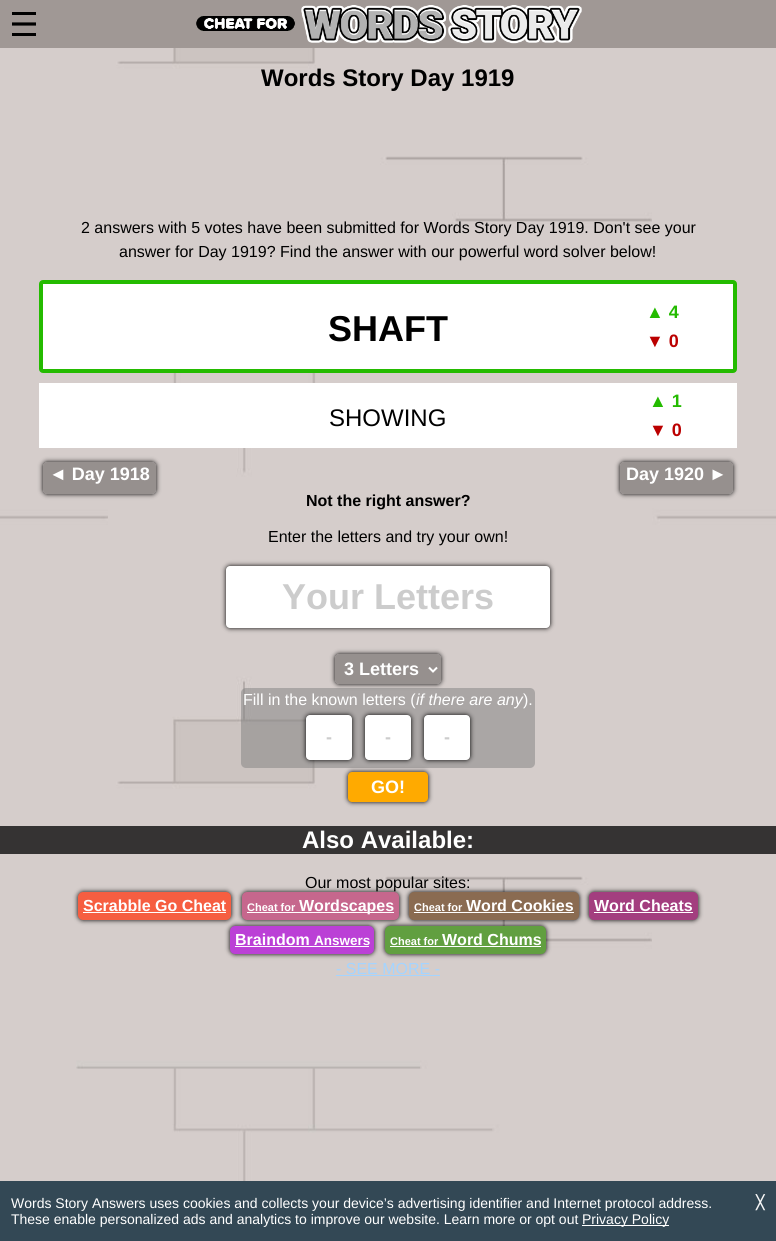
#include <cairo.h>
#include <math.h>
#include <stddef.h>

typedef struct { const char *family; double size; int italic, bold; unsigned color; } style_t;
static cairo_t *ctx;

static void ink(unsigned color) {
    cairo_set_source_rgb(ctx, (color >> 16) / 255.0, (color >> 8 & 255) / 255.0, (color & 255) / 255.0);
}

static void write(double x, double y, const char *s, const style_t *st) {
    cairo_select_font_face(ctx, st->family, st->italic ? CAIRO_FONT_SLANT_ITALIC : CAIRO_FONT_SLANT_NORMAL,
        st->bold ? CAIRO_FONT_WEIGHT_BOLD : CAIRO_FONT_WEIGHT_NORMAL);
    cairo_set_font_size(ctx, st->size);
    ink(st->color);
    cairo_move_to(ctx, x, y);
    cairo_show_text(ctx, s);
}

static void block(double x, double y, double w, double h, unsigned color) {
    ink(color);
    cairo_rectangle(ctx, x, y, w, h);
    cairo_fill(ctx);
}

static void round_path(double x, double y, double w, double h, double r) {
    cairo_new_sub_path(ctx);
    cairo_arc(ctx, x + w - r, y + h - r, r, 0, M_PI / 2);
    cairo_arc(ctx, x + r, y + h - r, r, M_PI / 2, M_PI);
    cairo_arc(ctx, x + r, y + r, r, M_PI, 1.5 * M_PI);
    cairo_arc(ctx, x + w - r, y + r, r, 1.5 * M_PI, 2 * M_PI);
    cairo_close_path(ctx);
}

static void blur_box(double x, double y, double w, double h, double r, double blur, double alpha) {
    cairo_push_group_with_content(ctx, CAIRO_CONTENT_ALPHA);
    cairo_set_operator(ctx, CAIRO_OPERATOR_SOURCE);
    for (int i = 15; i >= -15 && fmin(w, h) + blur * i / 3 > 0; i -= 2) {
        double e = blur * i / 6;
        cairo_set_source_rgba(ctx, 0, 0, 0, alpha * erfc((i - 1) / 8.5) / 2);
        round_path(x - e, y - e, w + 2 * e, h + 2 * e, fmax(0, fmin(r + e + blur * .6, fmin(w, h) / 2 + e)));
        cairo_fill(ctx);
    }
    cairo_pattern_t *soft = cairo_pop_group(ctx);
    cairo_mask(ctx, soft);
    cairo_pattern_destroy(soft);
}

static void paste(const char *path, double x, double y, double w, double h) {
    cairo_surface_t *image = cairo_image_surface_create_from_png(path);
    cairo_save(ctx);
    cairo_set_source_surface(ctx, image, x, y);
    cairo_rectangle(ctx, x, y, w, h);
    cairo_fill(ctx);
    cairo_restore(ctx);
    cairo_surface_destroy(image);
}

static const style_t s1 = {"Liberation Sans", 24, 0, 1, 0x000000};
static const style_t s2 = {"Liberation Sans", 16, 0, 0, 0x000000};
static const style_t s3 = {"Liberation Sans", 36, 0, 1, 0x000000};
static const style_t s4 = {"Liberation Sans", 18, 0, 1, 0x24bb00};
static const style_t s5 = {"Liberation Sans", 18, 0, 1, 0xbb0000};
static const style_t s6 = {"Liberation Sans", 24, 0, 0, 0x000000};
static const style_t s7 = {"Liberation Sans", 18, 0, 1, 0xffffff};
static const style_t s8 = {"Liberation Sans", 16, 0, 1, 0x000000};
static const style_t s9 = {"Liberation Sans", 36, 0, 1, 0xcccccc};
static const style_t s10 = {"Liberation Sans", 16, 0, 0, 0xffffff};
static const style_t s11 = {"Liberation Sans", 16, 1, 0, 0xffffff};
static const style_t s12 = {"Liberation Sans", 18, 0, 1, 0xcccccc};
static const style_t s13 = {"Liberation Sans", 24, 0, 1, 0xffffff};
static const style_t s14 = {"Liberation Sans", 16, 0, 1, 0xffffff};
static const style_t s15 = {"Liberation Sans", 11, 0, 1, 0xffffff};
static const style_t s16 = {"Liberation Sans", 13.5, 0, 1, 0xffffff};
static const style_t s17 = {"Liberation Sans", 16, 0, 0, 0xa4d4ff};
static const style_t s18 = {"Liberation Sans", 14, 0, 0, 0xffffff};
static const style_t s19 = {"DejaVu Sans", 13.5, 0, 1, 0xf7f7f7};

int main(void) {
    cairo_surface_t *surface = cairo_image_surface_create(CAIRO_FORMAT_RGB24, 776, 1241);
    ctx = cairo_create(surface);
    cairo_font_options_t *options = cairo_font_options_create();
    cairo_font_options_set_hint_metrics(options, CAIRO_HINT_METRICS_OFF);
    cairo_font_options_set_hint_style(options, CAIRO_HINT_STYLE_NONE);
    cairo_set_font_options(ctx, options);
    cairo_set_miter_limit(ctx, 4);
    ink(0xffffff);
    cairo_paint(ctx);
    paste("pic1.png", 0, 48, 776, 1133);
    block(0, 0, 776, 48, 0xa09895);
    paste("pic2.png", 12, 12, 24, 24);
    paste("pic3.png", 196, 5, 386, 39);
    write(261, 86, "Words Story Day 1919", &s1);
    write(81, 233, "2 answers with 5 votes have been submitted for Words Story Day 1919. Don't see your", &s2);
    write(119, 257, "answer for Day 1919? Find the answer with our powerful word solver below!", &s2);
    ink(0xffffff);
    round_path(41, 282, 694, 89, 2);
    cairo_fill_preserve(ctx);
    ink(0x24bb00);
    cairo_set_line_width(ctx, 4);
    cairo_stroke(ctx);
    write(328, 341, "SHAFT", &s3);
    write(646, 318, "▲ 4", &s4);
    write(646, 347, "▼ 0", &s5);
    block(39, 383, 698, 65, 0xffffff);
    write(329, 426, "SHOWING", &s6);
    write(649, 407, "▲ 1", &s4);
    write(649, 436, "▼ 0", &s5);
    cairo_save(ctx);
    cairo_set_fill_rule(ctx, CAIRO_FILL_RULE_EVEN_ODD);
    cairo_new_path(ctx);
    cairo_move_to(ctx, 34, 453);
    cairo_line_to(ctx, 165, 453);
    cairo_line_to(ctx, 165, 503);
    cairo_line_to(ctx, 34, 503);
    cairo_close_path(ctx);
    cairo_move_to(ctx, 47, 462);
    cairo_line_to(ctx, 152, 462);
    cairo_curve_to(ctx, 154, 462, 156, 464, 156, 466);
    cairo_line_to(ctx, 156, 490);
    cairo_curve_to(ctx, 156, 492, 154, 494, 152, 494);
    cairo_line_to(ctx, 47, 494);
    cairo_curve_to(ctx, 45, 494, 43, 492, 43, 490);
    cairo_line_to(ctx, 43, 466);
    cairo_curve_to(ctx, 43, 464, 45, 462, 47, 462);
    cairo_close_path(ctx);
    cairo_clip(ctx);
    ink(0x000000);
    blur_box(43, 462, 113, 32, 4, 2.5, 1);
    cairo_restore(ctx);
    cairo_set_source_rgba(ctx, 0, 0, 0, 0.3);
    round_path(43, 462, 113, 32, 4);
    cairo_fill(ctx);
    write(49, 480, "◄ Day 1918", &s7);
    cairo_save(ctx);
    cairo_set_fill_rule(ctx, CAIRO_FILL_RULE_EVEN_ODD);
    cairo_new_path(ctx);
    cairo_move_to(ctx, 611, 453);
    cairo_line_to(ctx, 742, 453);
    cairo_line_to(ctx, 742, 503);
    cairo_line_to(ctx, 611, 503);
    cairo_close_path(ctx);
    cairo_move_to(ctx, 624, 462);
    cairo_line_to(ctx, 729, 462);
    cairo_curve_to(ctx, 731, 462, 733, 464, 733, 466);
    cairo_line_to(ctx, 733, 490);
    cairo_curve_to(ctx, 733, 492, 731, 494, 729, 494);
    cairo_line_to(ctx, 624, 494);
    cairo_curve_to(ctx, 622, 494, 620, 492, 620, 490);
    cairo_line_to(ctx, 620, 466);
    cairo_curve_to(ctx, 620, 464, 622, 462, 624, 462);
    cairo_close_path(ctx);
    cairo_clip(ctx);
    ink(0x000000);
    blur_box(620, 462, 113, 32, 4, 2.5, 1);
    cairo_restore(ctx);
    cairo_set_source_rgba(ctx, 0, 0, 0, 0.3);
    round_path(620, 462, 113, 32, 4);
    cairo_fill(ctx);
    write(626, 480, "Day 1920 ►", &s7);
    write(306, 506, "Not the right answer?", &s8);
    write(268, 542, "Enter the letters and try your own!", &s2);
    ink(0x000000);
    blur_box(226, 566, 324, 62, 4, 2.5, 1);
    ink(0xffffff);
    round_path(226, 566, 324, 62, 4);
    cairo_fill(ctx);
    write(282, 609, "Your Letters", &s9);
    cairo_set_source_rgba(ctx, 0.502, 0.502, 0.502, 0.5);
    round_path(241, 688, 294, 80, 5);
    cairo_fill(ctx);
    cairo_save(ctx);
    cairo_set_fill_rule(ctx, CAIRO_FILL_RULE_EVEN_ODD);
    cairo_new_path(ctx);
    cairo_move_to(ctx, 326, 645);
    cairo_line_to(ctx, 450, 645);
    cairo_line_to(ctx, 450, 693);
    cairo_line_to(ctx, 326, 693);
    cairo_close_path(ctx);
    cairo_move_to(ctx, 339, 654);
    cairo_line_to(ctx, 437, 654);
    cairo_curve_to(ctx, 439, 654, 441, 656, 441, 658);
    cairo_line_to(ctx, 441, 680);
    cairo_curve_to(ctx, 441, 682, 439, 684, 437, 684);
    cairo_line_to(ctx, 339, 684);
    cairo_curve_to(ctx, 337, 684, 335, 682, 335, 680);
    cairo_line_to(ctx, 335, 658);
    cairo_curve_to(ctx, 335, 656, 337, 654, 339, 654);
    cairo_close_path(ctx);
    cairo_clip(ctx);
    ink(0x000000);
    blur_box(335, 654, 106, 30, 4, 2.5, 1);
    cairo_restore(ctx);
    cairo_set_source_rgba(ctx, 0, 0, 0, 0.3);
    round_path(335, 654, 106, 30, 4);
    cairo_fill(ctx);
    cairo_new_path(ctx);
    cairo_move_to(ctx, 429, 667.5);
    cairo_line_to(ctx, 433, 671.5);
    cairo_line_to(ctx, 437, 667.5);
    ink(0xffffff);
    cairo_set_line_width(ctx, 2);
    cairo_stroke(ctx);
    write(344, 675, "3 Letters", &s7);
    write(243, 705, "Fill in the known letters (", &s10);
    write(416, 705, "if there are any", &s11);
    write(523, 705, ").", &s10);
    ink(0x000000);
    blur_box(306, 715, 46, 45, 4, 2.5, 1);
    ink(0xffffff);
    round_path(306, 715, 46, 45, 4);
    cairo_fill(ctx);
    write(326, 743, "-", &s12);
    ink(0x000000);
    blur_box(365, 715, 46, 45, 4, 2.5, 1);
    ink(0xffffff);
    round_path(365, 715, 46, 45, 4);
    cairo_fill(ctx);
    write(385, 743, "-", &s12);
    ink(0x000000);
    blur_box(424, 715, 46, 45, 4, 2.5, 1);
    ink(0xffffff);
    round_path(424, 715, 46, 45, 4);
    cairo_fill(ctx);
    write(444, 743, "-", &s12);
    ink(0x000000);
    blur_box(348, 772, 80, 30, 4, 2.5, 1);
    ink(0xffaa00);
    round_path(348, 772, 80, 30, 4);
    cairo_fill(ctx);
    write(371, 793, "GO!", &s7);
    block(0, 826, 776, 28, 0x353333);
    write(302, 848, "Also Available:", &s13);
    write(305, 888, "Our most popular sites:", &s2);
    ink(0x000000);
    blur_box(78, 892, 153, 28, 5, 2.5, 1);
    ink(0xf65e41);
    round_path(78, 892, 153, 28, 5);
    cairo_fill(ctx);
    write(83, 911, "Scrabble Go Cheat", &s14);
    block(83, 912, 143, 1, 0xffffff);
    ink(0x000000);
    blur_box(242, 892, 157, 28, 5, 2.5, 1);
    ink(0xc6678d);
    round_path(242, 892, 157, 28, 5);
    cairo_fill(ctx);
    write(247, 911, "Cheat for", &s15);
    block(247, 912, 147, 1, 0xffffff);
    write(299, 911, "Wordscapes", &s14);
    ink(0x000000);
    blur_box(409, 892, 170, 28, 5, 2.5, 1);
    ink(0x8a6b51);
    round_path(409, 892, 170, 28, 5);
    cairo_fill(ctx);
    write(414, 911, "Cheat for", &s15);
    block(414, 912, 160, 1, 0xffffff);
    write(466, 911, "Word Cookies", &s14);
    ink(0x000000);
    blur_box(589, 892, 109, 28, 5, 2.5, 1);
    ink(0xa33e7f);
    round_path(589, 892, 109, 28, 5);
    cairo_fill(ctx);
    write(594, 911, "Word Cheats", &s14);
    block(594, 912, 99, 1, 0xffffff);
    ink(0x000000);
    blur_box(230, 926, 144, 28, 5, 2.5, 1);
    ink(0xbb40d6);
    round_path(230, 926, 144, 28, 5);
    cairo_fill(ctx);
    write(235, 945, "Braindom", &s14);
    block(235, 946, 134, 1, 0xffffff);
    write(314, 945, "Answers", &s16);
    ink(0x000000);
    blur_box(385, 926, 161, 28, 5, 2.5, 1);
    ink(0x619f40);
    round_path(385, 926, 161, 28, 5);
    cairo_fill(ctx);
    write(390, 945, "Cheat for", &s15);
    block(390, 946, 151, 1, 0xffffff);
    write(442, 945, "Word Chums", &s14);
    write(336, 974, "- SEE MORE -", &s17);
    block(336, 975, 104, 1, 0xa4d4ff);
    block(0, 1181, 776, 60, 0x334855);
    write(11, 1208, "Words Story Answers uses cookies and collects your device’s advertising identifier and Internet protocol address.", &s18);
    write(11, 1224, "These enable personalized ads and analytics to improve our website. Learn more or opt out", &s18);
    block(582, 1225, 87, 1, 0xffffff);
    write(582, 1224, "Privacy Policy", &s18);
    write(756, 1207, "╳", &s19);
    cairo_surface_write_to_png(surface, "screenshot.png");
    cairo_font_options_destroy(options);
    cairo_destroy(ctx);
    cairo_surface_destroy(surface);
    return 0;
}
